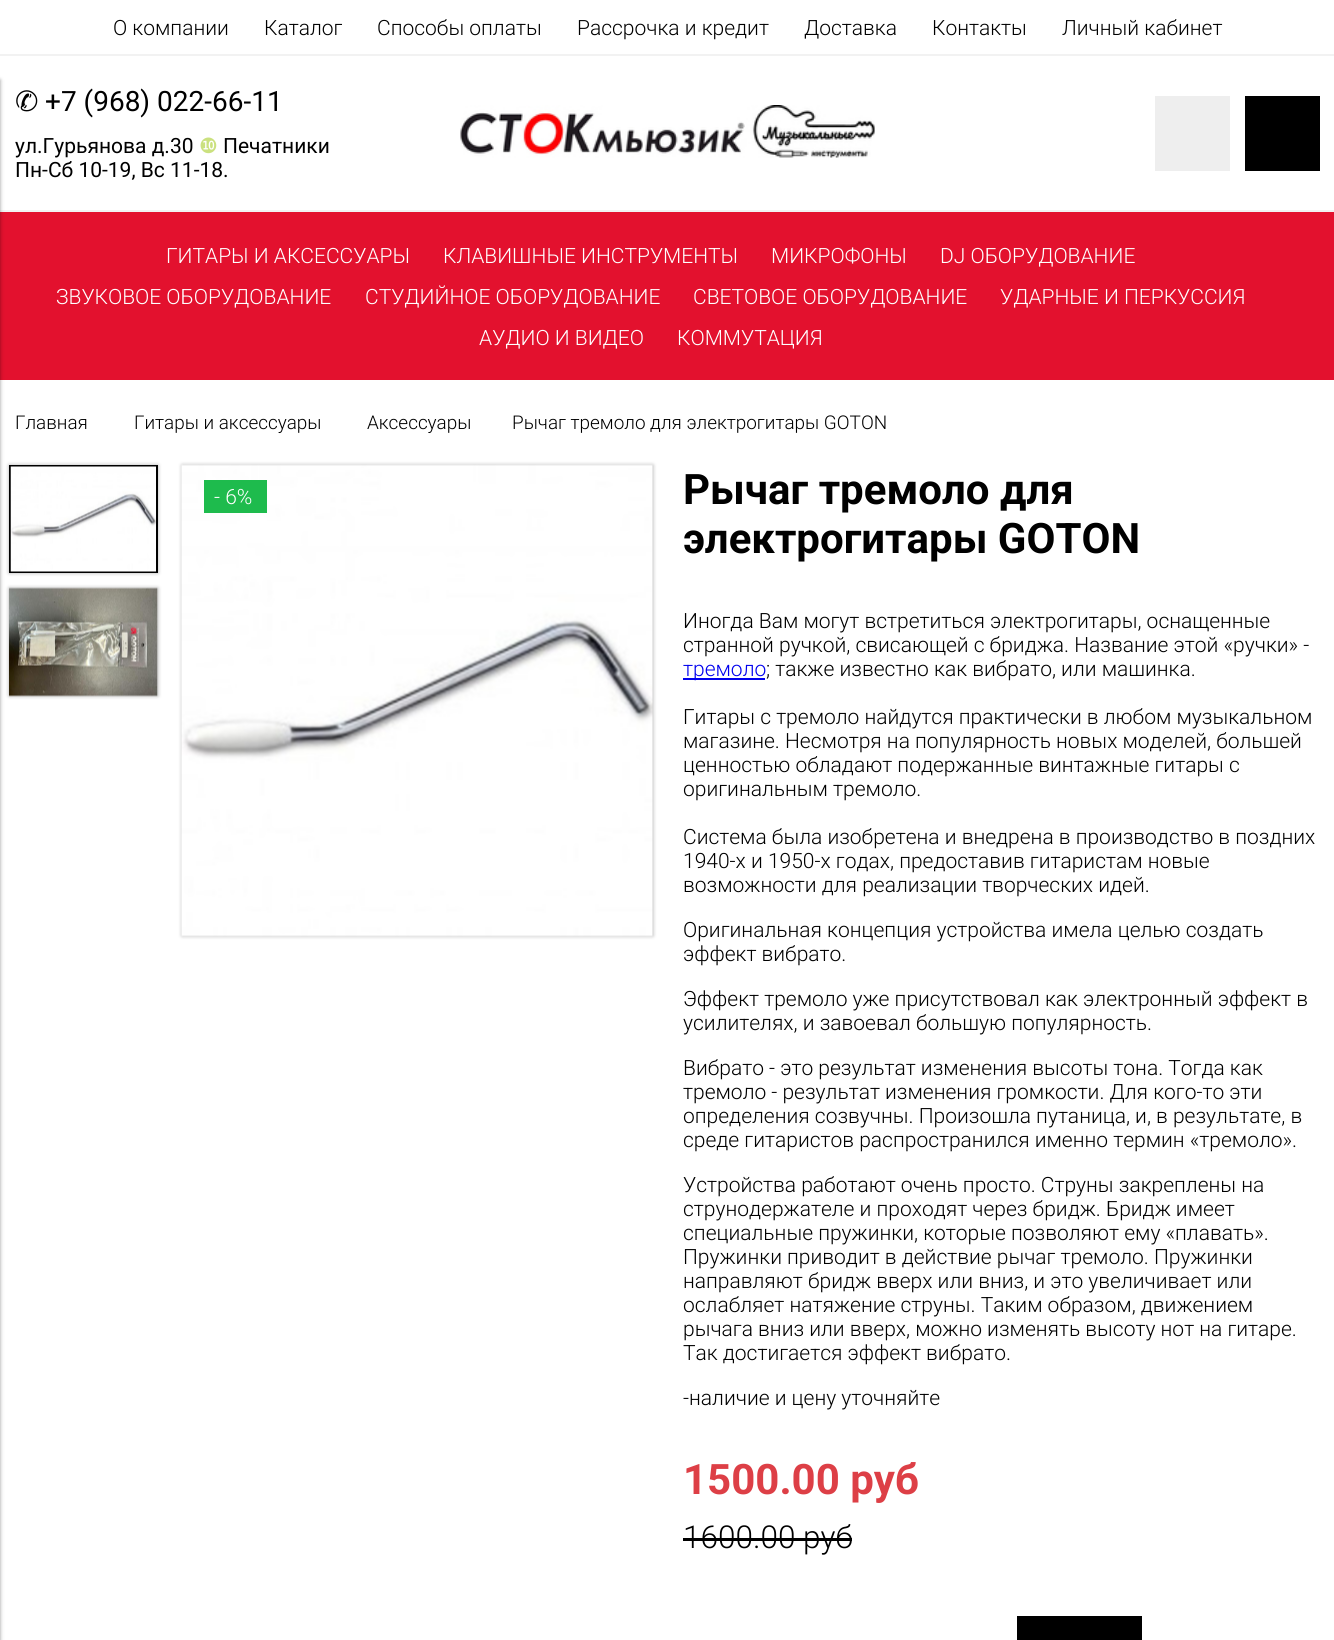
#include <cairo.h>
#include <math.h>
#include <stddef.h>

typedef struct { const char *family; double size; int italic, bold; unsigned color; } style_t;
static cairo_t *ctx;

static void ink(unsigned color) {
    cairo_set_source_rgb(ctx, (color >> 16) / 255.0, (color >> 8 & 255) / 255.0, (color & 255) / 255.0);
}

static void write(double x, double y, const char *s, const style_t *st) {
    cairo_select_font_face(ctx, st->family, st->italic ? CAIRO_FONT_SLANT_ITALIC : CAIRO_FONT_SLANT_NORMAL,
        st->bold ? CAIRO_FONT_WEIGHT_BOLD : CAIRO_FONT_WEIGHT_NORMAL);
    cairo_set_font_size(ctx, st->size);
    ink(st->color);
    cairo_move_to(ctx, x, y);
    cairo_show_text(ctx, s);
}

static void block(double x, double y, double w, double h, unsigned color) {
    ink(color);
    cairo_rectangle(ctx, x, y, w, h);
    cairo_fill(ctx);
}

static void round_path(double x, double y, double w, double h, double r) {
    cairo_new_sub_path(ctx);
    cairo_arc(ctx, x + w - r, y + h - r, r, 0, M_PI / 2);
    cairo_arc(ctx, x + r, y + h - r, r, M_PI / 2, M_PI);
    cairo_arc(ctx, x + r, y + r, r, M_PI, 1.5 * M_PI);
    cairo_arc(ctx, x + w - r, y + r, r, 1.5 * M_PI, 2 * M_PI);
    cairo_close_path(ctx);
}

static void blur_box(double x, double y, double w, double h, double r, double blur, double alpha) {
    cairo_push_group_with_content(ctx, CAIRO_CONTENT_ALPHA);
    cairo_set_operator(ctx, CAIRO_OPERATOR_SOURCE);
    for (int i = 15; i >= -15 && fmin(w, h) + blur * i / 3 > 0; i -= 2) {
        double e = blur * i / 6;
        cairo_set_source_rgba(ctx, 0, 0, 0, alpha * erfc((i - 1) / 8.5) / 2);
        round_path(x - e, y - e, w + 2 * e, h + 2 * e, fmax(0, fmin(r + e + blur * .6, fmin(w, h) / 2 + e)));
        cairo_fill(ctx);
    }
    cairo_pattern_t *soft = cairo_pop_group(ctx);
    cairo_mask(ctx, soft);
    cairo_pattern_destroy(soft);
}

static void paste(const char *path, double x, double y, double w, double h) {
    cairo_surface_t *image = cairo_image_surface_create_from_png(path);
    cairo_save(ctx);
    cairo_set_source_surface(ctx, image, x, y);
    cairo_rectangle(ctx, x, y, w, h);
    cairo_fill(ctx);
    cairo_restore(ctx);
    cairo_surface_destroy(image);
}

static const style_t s1 = {"Roboto Light", 21, 0, 0, 0x000000};
static const style_t s2 = {"DejaVu Sans", 28, 0, 0, 0x000000};
static const style_t s3 = {"Roboto", 28, 0, 0, 0x000000};
static const style_t s4 = {"Roboto", 21, 0, 0, 0x000000};
static const style_t s5 = {"DejaVu Sans", 21, 0, 0, 0xcbe17f};
static const style_t s6 = {"Roboto Light", 21, 0, 0, 0xffffff};
static const style_t s7 = {"Roboto Light", 18.9, 0, 0, 0x000000};
static const style_t s8 = {"Roboto", 42, 0, 1, 0x000000};
static const style_t s9 = {"Roboto Light", 21, 0, 0, 0x0000ee};
static const style_t s10 = {"Roboto", 42, 0, 1, 0xdd3f46};
static const style_t s11 = {"Roboto Light", 31.5, 0, 0, 0x000000};

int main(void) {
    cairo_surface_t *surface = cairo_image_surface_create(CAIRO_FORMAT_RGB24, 1334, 1640);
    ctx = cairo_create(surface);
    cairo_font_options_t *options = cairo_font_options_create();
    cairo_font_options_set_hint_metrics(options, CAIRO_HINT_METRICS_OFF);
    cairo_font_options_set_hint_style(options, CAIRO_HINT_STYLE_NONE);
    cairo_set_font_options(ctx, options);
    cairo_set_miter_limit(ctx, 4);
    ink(0xffffff);
    cairo_paint(ctx);
    block(0, 210, 1334, 2, 0xf2f2f2);
    block(0, 212, 1334, 168, 0xe3112e);
    ink(0x000000);
    blur_box(-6, 80, 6, 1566, 0, 2, 0.4);
    block(0, 54, 1334, 2, 0xf2f2f2);
    write(113, 35, "О компании", &s1);
    write(264, 35, "Каталог", &s1);
    write(377, 35, "Способы оплаты", &s1);
    write(577, 35, "Рассрочка и кредит", &s1);
    write(804, 35, "Доставка", &s1);
    write(932, 35, "Контакты", &s1);
    write(1062, 35, "Личный кабинет", &s1);
    write(15, 111, "✆", &s2);
    write(45, 111, "+7 (968) 022-66-11", &s3);
    write(15, 153, "ул.Гурьянова д.30", &s4);
    write(199, 153, "❿", &s5);
    write(223, 153, "Печатники", &s4);
    write(15, 177, "Пн-Сб 10-19, Вс 11-18.", &s4);
    paste("pic1.png", 460, 105, 415, 53);
    block(1155, 96, 75, 75, 0xeeeeee);
    block(1245, 96, 75, 75, 0x000000);
    write(166, 263, "ГИТАРЫ И АКСЕССУАРЫ", &s6);
    write(443, 263, "КЛАВИШНЫЕ ИНСТРУМЕНТЫ", &s6);
    write(771, 263, "МИКРОФОНЫ", &s6);
    write(940, 263, "DJ ОБОРУДОВАНИЕ", &s6);
    write(56, 304, "ЗВУКОВОЕ ОБОРУДОВАНИЕ", &s6);
    write(365, 304, "СТУДИЙНОЕ ОБОРУДОВАНИЕ", &s6);
    write(693, 304, "СВЕТОВОЕ ОБОРУДОВАНИЕ", &s6);
    write(1000, 304, "УДАРНЫЕ И ПЕРКУССИЯ", &s6);
    write(479, 345, "АУДИО И ВИДЕО", &s6);
    write(677, 345, "КОММУТАЦИЯ", &s6);
    write(15, 429, "Главная", &s7);
    write(134, 429, "Гитары и аксессуары", &s7);
    write(367, 429, "Аксессуары", &s7);
    write(512, 429, "Рычаг тремоло для электрогитары GOTON", &s7);
    ink(0x000000);
    blur_box(9, 465, 149, 108, 0, 2, 0.3);
    cairo_rectangle(ctx, 10, 466, 147, 106);
    ink(0x000000);
    cairo_stroke(ctx);
    paste("pic2.png", 10, 466, 146, 106);
    ink(0x000000);
    blur_box(9, 588, 149, 108, 0, 2, 0.3);
    paste("pic3.png", 9, 587, 149, 110);
    blur_box(182, 465, 471, 471, 0, 2, 0.3);
    paste("pic4.png", 181, 464, 472, 473);
    block(204, 480, 63, 33, 0x1ebb4d);
    write(214, 504, "- 6%", &s6);
    write(683, 504, "Рычаг тремоло для", &s8);
    write(683, 553, "электрогитары GOTON", &s8);
    write(683, 628, "Иногда Вам могут встретиться электрогитары, оснащенные", &s1);
    write(683, 652, "странной ручкой, свисающей с бриджа. Название этой «ручки» -", &s1);
    block(683, 678, 82, 2, 0x0000ee);
    write(683, 676, "тремоло", &s9);
    write(766, 676, "; также известно как вибрато, или машинка.", &s1);
    write(683, 724, "Гитары с тремоло найдутся практически в любом музыкальном", &s1);
    write(683, 748, "магазине. Несмотря на популярность новых моделей, большей", &s1);
    write(683, 772, "ценностью обладают подержанные винтажные гитары с", &s1);
    write(683, 796, "оригинальным тремоло.", &s1);
    write(683, 844, "Система была изобретена и внедрена в производство в поздних", &s1);
    write(683, 868, "1940-х и 1950-х годах, предоставив гитаристам новые", &s1);
    write(683, 892, "возможности для реализации творческих идей.", &s1);
    write(683, 937, "Оригинальная концепция устройства имела целью создать", &s1);
    write(683, 961, "эффект вибрато.", &s1);
    write(683, 1006, "Эффект тремоло уже присутствовал как электронный эффект в", &s1);
    write(683, 1030, "усилителях, и завоевал большую популярность.", &s1);
    write(683, 1075, "Вибрато - это результат изменения высоты тона. Тогда как", &s1);
    write(683, 1099, "тремоло - результат изменения громкости. Для кого-то эти", &s1);
    write(683, 1123, "определения созвучны. Произошла путаница, и, в результате, в", &s1);
    write(683, 1147, "среде гитаристов распространился именно термин «тремоло».", &s1);
    write(683, 1192, "Устройства работают очень просто. Струны закреплены на", &s1);
    write(683, 1216, "струнодержателе и проходят через бридж. Бридж имеет", &s1);
    write(683, 1240, "специальные пружинки, которые позволяют ему «плавать».", &s1);
    write(683, 1264, "Пружинки приводит в действие рычаг тремоло. Пружинки", &s1);
    write(683, 1288, "направляют бридж вверх или вниз, и это увеличивает или", &s1);
    write(683, 1312, "ослабляет натяжение струны. Таким образом, движением", &s1);
    write(683, 1336, "рычага вниз или вверх, можно изменять высоту нот на гитаре.", &s1);
    write(683, 1360, "Так достигается эффект вибрато.", &s1);
    write(683, 1405, "-наличие и цену уточняйте", &s1);
    write(683, 1494, "1500.00 руб", &s10);
    write(683, 1548, "1600.00 руб", &s11);
    block(683, 1538, 169, 3, 0x000000);
    block(1017, 1616, 125, 24, 0x000000);
    cairo_surface_write_to_png(surface, "screenshot.png");
    cairo_font_options_destroy(options);
    cairo_destroy(ctx);
    cairo_surface_destroy(surface);
    return 0;
}
